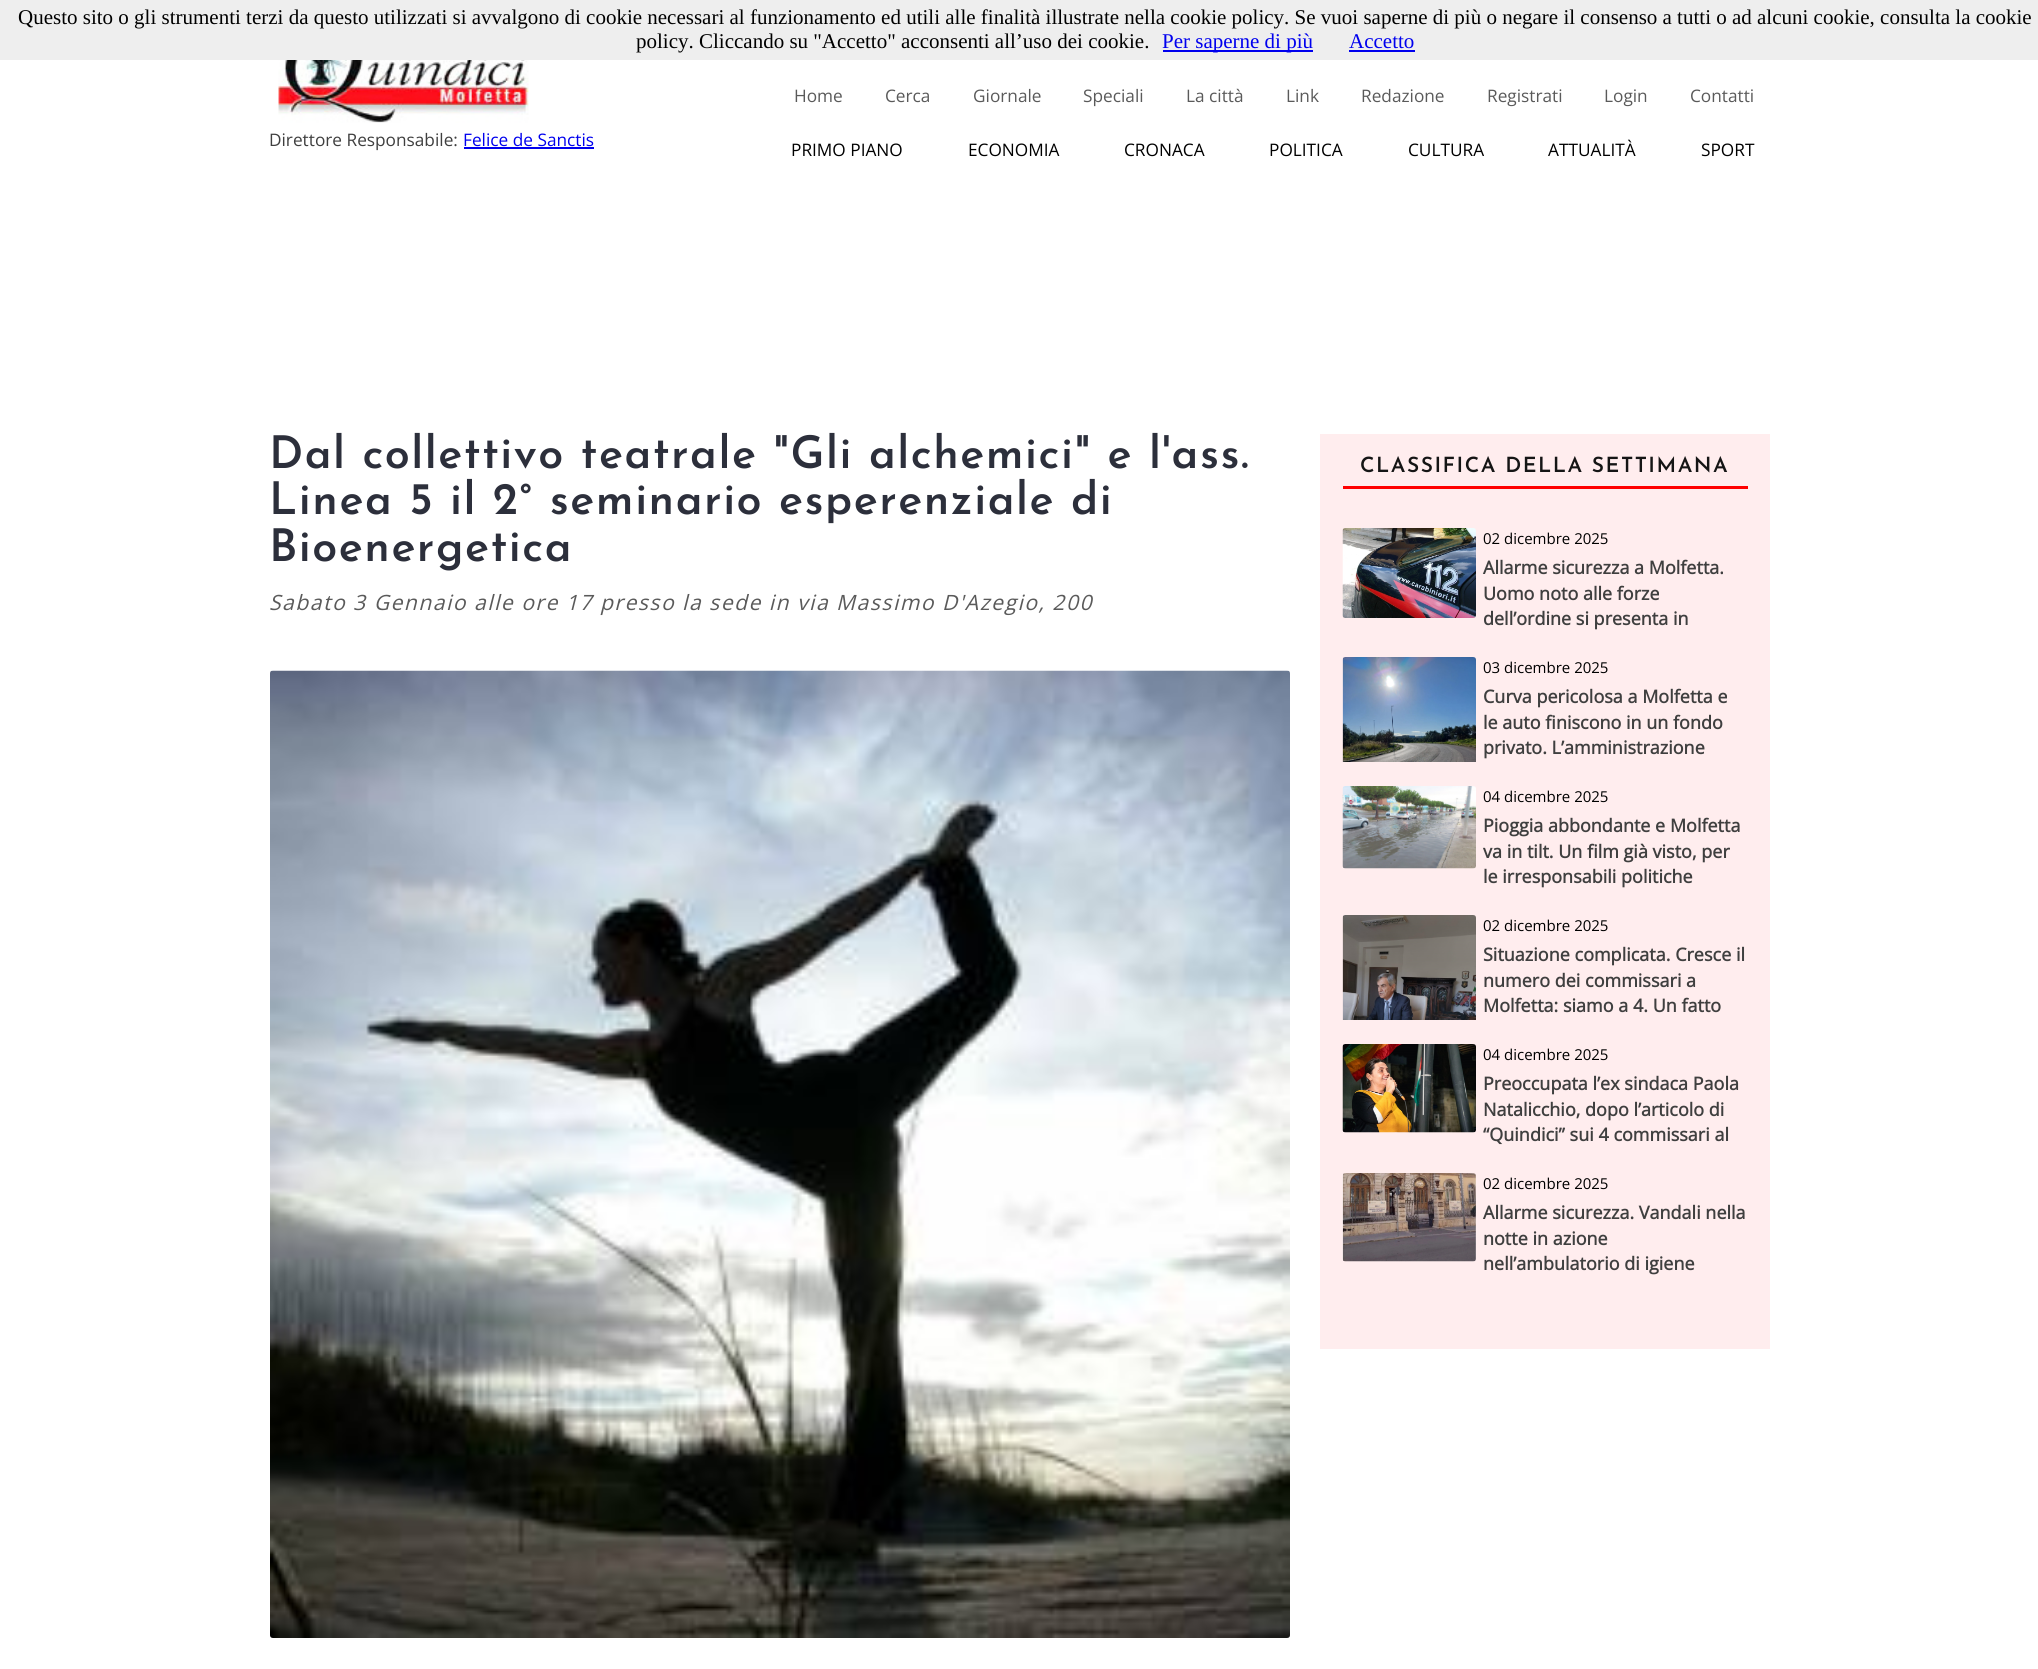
#include <cairo.h>
#include <math.h>
#include <stddef.h>

typedef struct { const char *family; double size; int italic, bold; unsigned color; } style_t;
static cairo_t *ctx;

static void ink(unsigned color) {
    cairo_set_source_rgb(ctx, (color >> 16) / 255.0, (color >> 8 & 255) / 255.0, (color & 255) / 255.0);
}

static void write(double x, double y, const char *s, const style_t *st) {
    cairo_select_font_face(ctx, st->family, st->italic ? CAIRO_FONT_SLANT_ITALIC : CAIRO_FONT_SLANT_NORMAL,
        st->bold ? CAIRO_FONT_WEIGHT_BOLD : CAIRO_FONT_WEIGHT_NORMAL);
    cairo_set_font_size(ctx, st->size);
    ink(st->color);
    cairo_move_to(ctx, x, y);
    cairo_show_text(ctx, s);
}

static void write_spaced(double x, double y, const char *s, double letter, double word) {
    cairo_move_to(ctx, x, y);
    while (*s) {
        char ch[5] = {0};
        int n = 0;
        do ch[n++] = *s++; while ((*s & 0xC0) == 0x80);
        cairo_show_text(ctx, ch);
        cairo_rel_move_to(ctx, letter + word * (*ch == ' '), 0);
    }
}

static void block(double x, double y, double w, double h, unsigned color) {
    ink(color);
    cairo_rectangle(ctx, x, y, w, h);
    cairo_fill(ctx);
}

static void paste(const char *path, double x, double y, double w, double h) {
    cairo_surface_t *image = cairo_image_surface_create_from_png(path);
    cairo_save(ctx);
    cairo_set_source_surface(ctx, image, x, y);
    cairo_rectangle(ctx, x, y, w, h);
    cairo_fill(ctx);
    cairo_restore(ctx);
    cairo_surface_destroy(image);
}

static const style_t s1 = {"Liberation Serif", 21, 0, 0, 0x000000};
static const style_t s2 = {"Liberation Serif", 21, 0, 0, 0x0000ee};
static const style_t s3 = {"Open Sans", 17.25, 0, 0, 0x5a5a5a};
static const style_t s4 = {"Open Sans", 17.25, 0, 0, 0x3f3f3f};
static const style_t s5 = {"Open Sans", 17.25, 0, 0, 0x0000ee};
static const style_t s6 = {"Open Sans", 17.25, 0, 0, 0x000000};
static const style_t s7 = {"Open Sans", 15, 0, 0, 0x000000};
static const style_t s8 = {"Open Sans", 18, 0, 1, 0x3f3f3f};

int main(void) {
    cairo_surface_t *surface = cairo_image_surface_create(CAIRO_FORMAT_RGB24, 2038, 1669);
    ctx = cairo_create(surface);
    cairo_font_options_t *options = cairo_font_options_create();
    cairo_font_options_set_hint_metrics(options, CAIRO_HINT_METRICS_OFF);
    cairo_font_options_set_hint_style(options, CAIRO_HINT_STYLE_NONE);
    cairo_set_font_options(ctx, options);
    cairo_set_miter_limit(ctx, 4);
    ink(0xffffff);
    cairo_paint(ctx);
    block(0, 0, 2038, 60, 0xeeeeee);
    write(18, 24, "Questo sito o gli strumenti terzi da questo utilizzati si avvalgono di cookie necessari al funzionamento ed utili alle finalità illustrate nella cookie policy. Se vuoi saperne di più o negare il consenso a tutti o ad alcuni cookie, consulta la cookie", &s1);
    write(636, 48, "policy. Cliccando su \"Accetto\" acconsenti all’uso dei cookie.", &s1);
    block(1163, 50, 150, 2, 0x0000ee);
    write(1162, 48, "Per saperne di più", &s2);
    write(1349, 48, "Accetto", &s2);
    block(1349, 50, 66, 2, 0x0000ee);
    write(794, 102, "Home", &s3);
    write(885, 102, "Cerca", &s3);
    write(973, 102, "Giornale", &s3);
    write(1083, 102, "Speciali", &s3);
    write(1186, 102, "La città", &s3);
    write(1286, 102, "Link", &s3);
    write(1361, 102, "Redazione", &s3);
    write(1487, 102, "Registrati", &s3);
    write(1604, 102, "Login", &s3);
    write(1690, 102, "Contatti", &s3);
    paste("pic1.png", 278, 60, 251, 63);
    write(269, 146, "Direttore Responsabile:", &s4);
    write(463, 146, "Felice de Sanctis", &s5);
    block(464, 147, 130, 2, 0x0000ee);
    write(791, 156, "PRIMO PIANO", &s6);
    write(968, 156, "ECONOMIA", &s6);
    write(1124, 156, "CRONACA", &s6);
    write(1269, 156, "POLITICA", &s6);
    write(1408, 156, "CULTURA", &s6);
    write(1548, 156, "ATTUALITÀ", &s6);
    write(1701, 156, "SPORT", &s6);
    cairo_select_font_face(ctx, "Josefin Sans SemiBold", CAIRO_FONT_SLANT_NORMAL, CAIRO_FONT_WEIGHT_NORMAL);
    cairo_set_font_size(ctx, 45);
    ink(0x2c2f3b);
    write_spaced(269, 468, "Dal collettivo teatrale \"Gli alchemici\" e l'ass.", 1.5, 0);
    write_spaced(269, 514, "Linea 5 il 2° seminario esperenziale di", 1.5, 0);
    write_spaced(269, 561, "Bioenergetica", 1.5, 0);
    cairo_select_font_face(ctx, "Open Sans", CAIRO_FONT_SLANT_ITALIC, CAIRO_FONT_WEIGHT_NORMAL);
    cairo_set_font_size(ctx, 21.1);
    ink(0x5a5a5a);
    write_spaced(269, 610, "Sabato 3 Gennaio alle ore 17 presso la sede in via Massimo D'Azegio, 200", 1.5, 0);
    paste("pic2.png", 270, 670, 1020, 968);
    block(1320, 434, 450, 915, 0xffedee);
    block(1343, 486, 405, 3, 0xff0000);
    cairo_select_font_face(ctx, "Josefin Sans SemiBold", CAIRO_FONT_SLANT_NORMAL, CAIRO_FONT_WEIGHT_NORMAL);
    cairo_set_font_size(ctx, 21);
    ink(0x151515);
    write_spaced(1360, 472, "CLASSIFICA DELLA SETTIMANA", 1.5, 0);
    paste("pic3.png", 1342, 528, 134, 90);
    write(1483, 544, "02 dicembre 2025", &s7);
    write(1483, 574, "Allarme sicurezza a Molfetta.", &s8);
    write(1483, 600, "Uomo noto alle forze", &s8);
    write(1483, 625, "dell’ordine si presenta in", &s8);
    paste("pic4.png", 1342, 657, 134, 105);
    write(1483, 673, "03 dicembre 2025", &s7);
    write(1483, 703, "Curva pericolosa a Molfetta e", &s8);
    write(1483, 729, "le auto finiscono in un fondo", &s8);
    write(1483, 754, "privato. L’amministrazione", &s8);
    paste("pic5.png", 1342, 786, 134, 83);
    write(1483, 802, "04 dicembre 2025", &s7);
    write(1483, 832, "Pioggia abbondante e Molfetta", &s8);
    write(1483, 858, "va in tilt. Un film già visto, per", &s8);
    write(1483, 883, "le irresponsabili politiche", &s8);
    paste("pic6.png", 1342, 915, 134, 105);
    write(1483, 931, "02 dicembre 2025", &s7);
    write(1483, 961, "Situazione complicata. Cresce il", &s8);
    write(1483, 987, "numero dei commissari a", &s8);
    write(1483, 1012, "Molfetta: siamo a 4. Un fatto", &s8);
    paste("pic7.png", 1342, 1044, 134, 89);
    write(1483, 1060, "04 dicembre 2025", &s7);
    write(1483, 1090, "Preoccupata l’ex sindaca Paola", &s8);
    write(1483, 1116, "Natalicchio, dopo l’articolo di", &s8);
    write(1483, 1141, "“Quindici” sui 4 commissari al", &s8);
    paste("pic8.png", 1342, 1173, 134, 89);
    write(1483, 1189, "02 dicembre 2025", &s7);
    write(1483, 1219, "Allarme sicurezza. Vandali nella", &s8);
    write(1483, 1245, "notte in azione", &s8);
    write(1483, 1270, "nell’ambulatorio di igiene", &s8);
    cairo_surface_write_to_png(surface, "screenshot.png");
    cairo_font_options_destroy(options);
    cairo_destroy(ctx);
    cairo_surface_destroy(surface);
    return 0;
}
